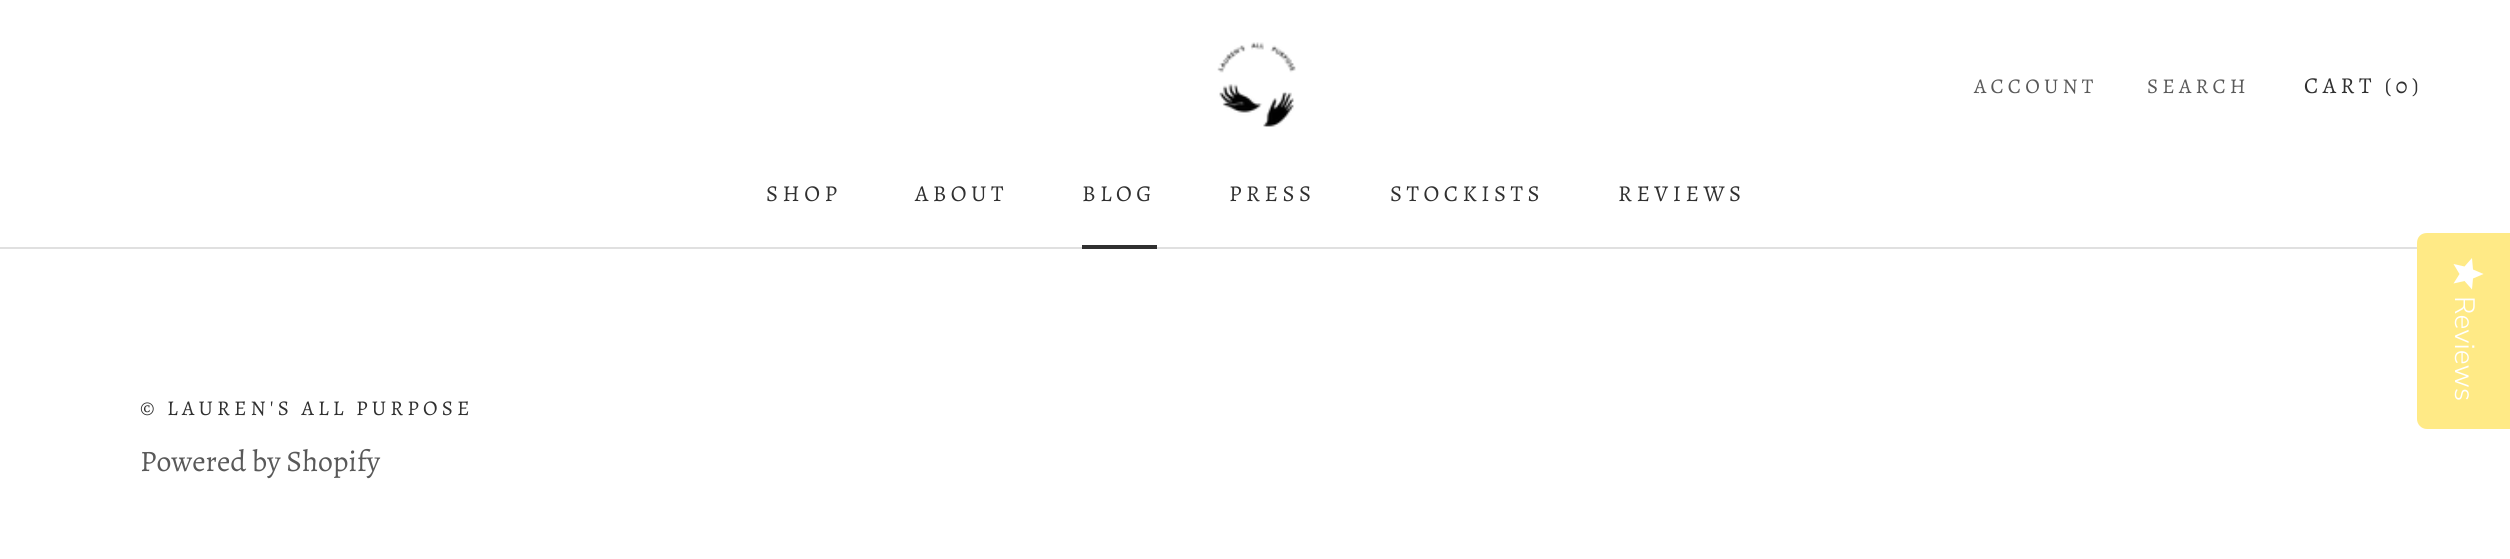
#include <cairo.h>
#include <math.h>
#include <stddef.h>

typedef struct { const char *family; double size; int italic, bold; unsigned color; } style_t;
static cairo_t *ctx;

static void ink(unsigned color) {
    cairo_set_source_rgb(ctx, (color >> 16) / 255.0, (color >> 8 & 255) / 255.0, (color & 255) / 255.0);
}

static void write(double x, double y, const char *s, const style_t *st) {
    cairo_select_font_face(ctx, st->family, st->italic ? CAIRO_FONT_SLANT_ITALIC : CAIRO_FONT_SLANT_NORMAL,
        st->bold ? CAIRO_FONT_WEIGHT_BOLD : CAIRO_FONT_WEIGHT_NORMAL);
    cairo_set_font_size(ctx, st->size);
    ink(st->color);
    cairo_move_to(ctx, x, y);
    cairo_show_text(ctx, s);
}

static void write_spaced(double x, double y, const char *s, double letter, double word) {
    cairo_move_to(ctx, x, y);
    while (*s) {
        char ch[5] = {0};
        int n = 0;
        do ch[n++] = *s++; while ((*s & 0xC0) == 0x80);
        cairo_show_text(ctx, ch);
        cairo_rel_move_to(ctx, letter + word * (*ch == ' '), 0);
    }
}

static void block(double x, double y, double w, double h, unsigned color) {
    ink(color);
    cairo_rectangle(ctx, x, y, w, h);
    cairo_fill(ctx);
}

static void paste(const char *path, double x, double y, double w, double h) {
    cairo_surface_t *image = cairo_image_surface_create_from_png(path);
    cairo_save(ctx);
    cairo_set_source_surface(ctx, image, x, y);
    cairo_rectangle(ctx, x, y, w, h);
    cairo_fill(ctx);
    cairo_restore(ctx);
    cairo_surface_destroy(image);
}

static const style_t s1 = {"Alegreya", 29.75, 0, 0, 0x595959};
static const style_t s2 = {"Nunito Sans Light", 28, 0, 0, 0xffffff};

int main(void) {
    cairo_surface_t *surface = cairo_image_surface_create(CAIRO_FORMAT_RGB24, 2510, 559);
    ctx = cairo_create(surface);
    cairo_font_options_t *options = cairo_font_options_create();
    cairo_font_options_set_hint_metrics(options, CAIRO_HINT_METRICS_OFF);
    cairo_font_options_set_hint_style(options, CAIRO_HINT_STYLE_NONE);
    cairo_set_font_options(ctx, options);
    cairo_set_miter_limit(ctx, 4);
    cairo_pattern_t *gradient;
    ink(0xffffff);
    cairo_paint(ctx);
    block(0, 247, 2417, 2, 0xe0e0e0);
    paste("pic1.png", 1217, 42, 79, 85);
    cairo_select_font_face(ctx, "Alegreya", CAIRO_FONT_SLANT_NORMAL, CAIRO_FONT_WEIGHT_NORMAL);
    cairo_set_font_size(ctx, 21);
    ink(0x595959);
    write_spaced(1974, 93, "ACCOUNT", 4.2, 0);
    write_spaced(2147, 93, "SEARCH", 4.2, 0);
    cairo_set_font_size(ctx, 22.75);
    ink(0x303030);
    write_spaced(2304, 93, "CART (0)", 4.5, 0);
    write_spaced(766, 201, "SHOP", 4.5, 0);
    write_spaced(915, 201, "ABOUT", 4.5, 0);
    write_spaced(1082, 201, "BLOG", 4.5, 0);
    block(1082, 245, 75, 4, 0x303030);
    write_spaced(1229, 201, "PRESS", 4.5, 0);
    write_spaced(1390, 201, "STOCKISTS", 4.5, 0);
    write_spaced(1618, 201, "REVIEWS", 4.5, 0);
    cairo_set_font_size(ctx, 21);
    write_spaced(140, 415, "© LAUREN'S ALL PURPOSE", 4.2, 0);
    write(140, 471, "Powered by Shopify", &s1);
    ink(0xffea86);
    cairo_new_path(ctx);
    cairo_move_to(ctx, 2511, 233);
    cairo_line_to(ctx, 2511, 429);
    cairo_line_to(ctx, 2427, 429);
    cairo_curve_to(ctx, 2421, 429, 2417, 424, 2417, 419);
    cairo_line_to(ctx, 2417, 243);
    cairo_curve_to(ctx, 2417, 237, 2421, 233, 2427, 233);
    cairo_close_path(ctx);
    cairo_fill(ctx);
    gradient = cairo_pattern_create_linear(2483, 258, 2483, 290);
    cairo_pattern_add_color_stop_rgba(gradient, 1, 1, 1, 1, 1);
    cairo_pattern_add_color_stop_rgba(gradient, 1, 0.918, 0.918, 0.918, 1);
    cairo_set_source(ctx, gradient);
    cairo_pattern_destroy(gradient);
    cairo_new_path(ctx);
    cairo_move_to(ctx, 2459.5, 274);
    cairo_line_to(ctx, 2453.5, 283.5);
    cairo_line_to(ctx, 2464.5, 281);
    cairo_line_to(ctx, 2472, 289.5);
    cairo_line_to(ctx, 2473, 278.5);
    cairo_line_to(ctx, 2483.5, 274);
    cairo_line_to(ctx, 2473, 269.5);
    cairo_line_to(ctx, 2472, 258);
    cairo_line_to(ctx, 2464.5, 266.5);
    cairo_line_to(ctx, 2453.5, 264);
    cairo_close_path(ctx);
    cairo_fill(ctx);
    cairo_save(ctx);
    cairo_translate(ctx, 2455, 296);
    cairo_rotate(ctx, 90 * M_PI / 180);
    write(0, 0, "Reviews", &s2);
    cairo_restore(ctx);
    cairo_surface_write_to_png(surface, "screenshot.png");
    cairo_font_options_destroy(options);
    cairo_destroy(ctx);
    cairo_surface_destroy(surface);
    return 0;
}
